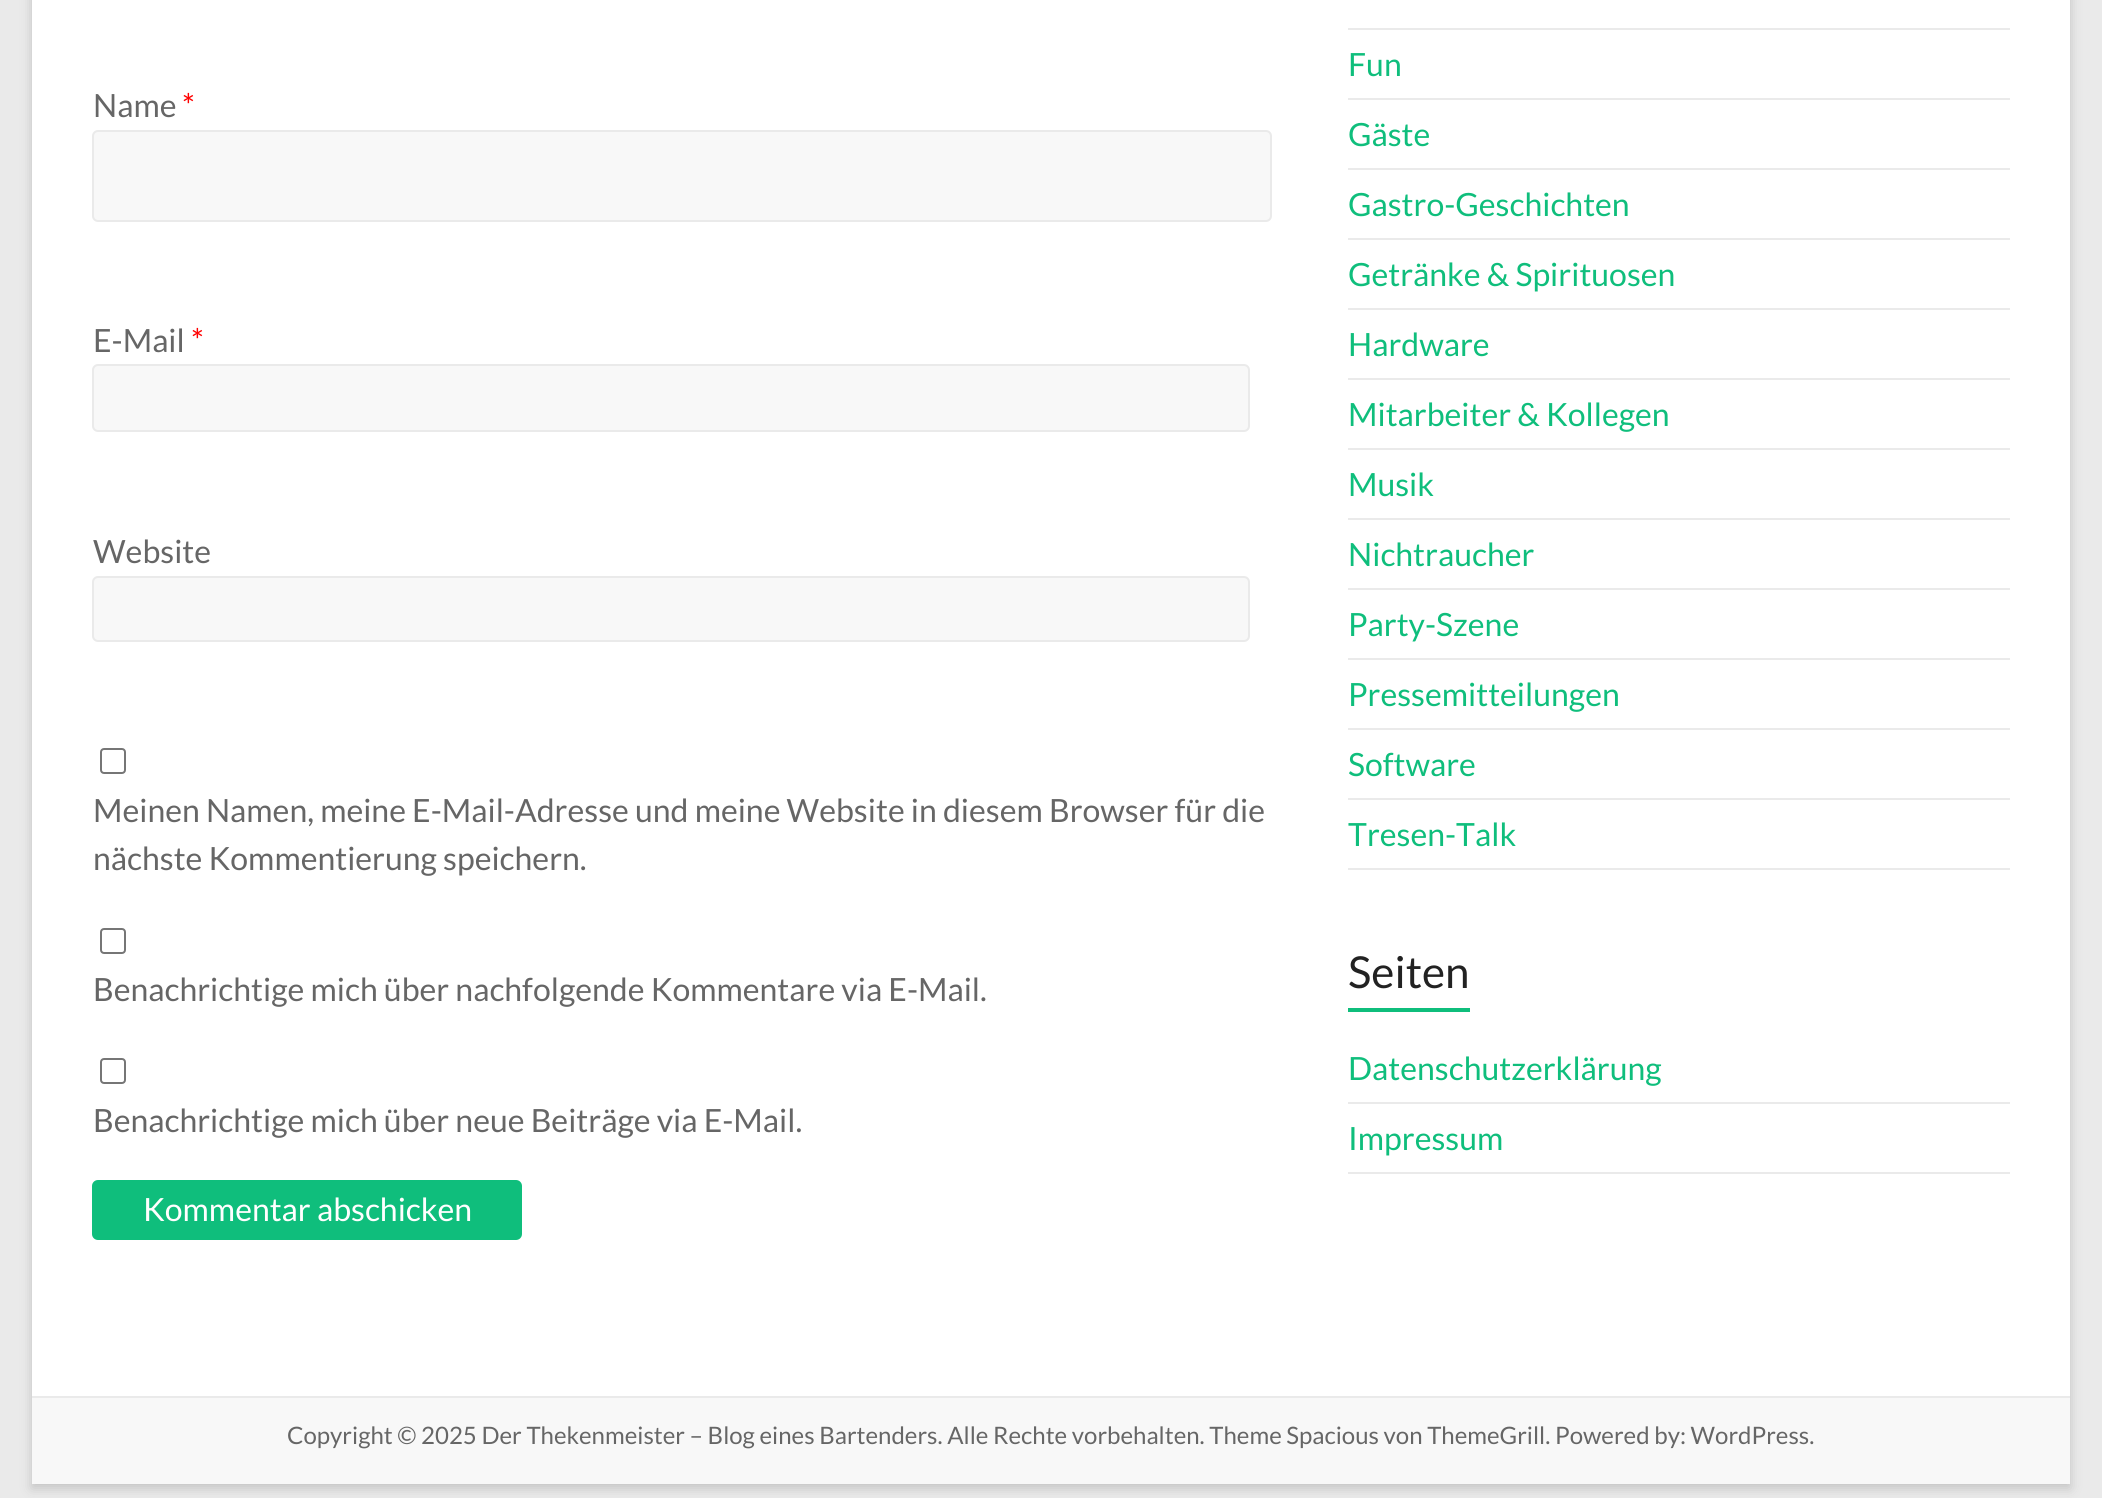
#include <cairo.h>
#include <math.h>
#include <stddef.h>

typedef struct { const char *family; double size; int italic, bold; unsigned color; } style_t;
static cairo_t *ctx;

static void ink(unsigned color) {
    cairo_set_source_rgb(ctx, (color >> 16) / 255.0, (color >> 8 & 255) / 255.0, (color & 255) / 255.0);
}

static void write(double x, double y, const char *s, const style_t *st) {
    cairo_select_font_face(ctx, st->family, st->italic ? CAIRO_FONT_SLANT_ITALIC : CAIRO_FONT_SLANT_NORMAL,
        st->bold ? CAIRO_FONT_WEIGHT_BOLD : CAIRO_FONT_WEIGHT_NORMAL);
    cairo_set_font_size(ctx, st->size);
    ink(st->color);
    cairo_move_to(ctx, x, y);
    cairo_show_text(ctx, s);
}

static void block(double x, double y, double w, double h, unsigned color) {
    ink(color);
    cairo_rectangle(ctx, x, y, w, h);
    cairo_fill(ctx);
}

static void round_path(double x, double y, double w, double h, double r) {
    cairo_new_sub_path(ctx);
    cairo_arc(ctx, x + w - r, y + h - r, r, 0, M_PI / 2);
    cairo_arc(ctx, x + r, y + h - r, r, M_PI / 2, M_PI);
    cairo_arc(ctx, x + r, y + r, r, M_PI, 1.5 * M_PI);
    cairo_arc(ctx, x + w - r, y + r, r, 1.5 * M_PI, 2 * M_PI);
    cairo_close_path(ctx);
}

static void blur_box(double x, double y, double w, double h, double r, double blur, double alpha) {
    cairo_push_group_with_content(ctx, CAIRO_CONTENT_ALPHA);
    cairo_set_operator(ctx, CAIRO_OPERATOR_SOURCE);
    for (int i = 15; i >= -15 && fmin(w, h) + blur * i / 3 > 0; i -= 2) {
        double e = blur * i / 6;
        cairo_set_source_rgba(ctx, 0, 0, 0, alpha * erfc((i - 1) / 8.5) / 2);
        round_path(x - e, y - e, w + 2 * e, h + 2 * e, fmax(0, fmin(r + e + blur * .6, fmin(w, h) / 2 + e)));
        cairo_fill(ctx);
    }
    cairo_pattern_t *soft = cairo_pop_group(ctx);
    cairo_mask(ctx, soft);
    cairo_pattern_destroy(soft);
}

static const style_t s1 = {"Lato", 32, 0, 0, 0x666666};
static const style_t s2 = {"Lato", 32, 0, 0, 0xff0000};
static const style_t s3 = {"Lato", 32, 0, 0, 0xffffff};
static const style_t s4 = {"Lato", 32, 0, 0, 0x0fbe7c};
static const style_t s5 = {"Lato", 44, 0, 0, 0x222222};
static const style_t s6 = {"Lato", 24, 0, 0, 0x666666};

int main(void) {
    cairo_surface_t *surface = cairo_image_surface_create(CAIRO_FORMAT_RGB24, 2102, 1498);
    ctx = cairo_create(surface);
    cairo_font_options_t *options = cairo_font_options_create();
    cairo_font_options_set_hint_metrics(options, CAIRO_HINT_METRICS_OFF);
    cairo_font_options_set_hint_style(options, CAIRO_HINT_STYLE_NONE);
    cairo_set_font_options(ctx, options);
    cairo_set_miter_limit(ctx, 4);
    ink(0xeaeaea);
    cairo_paint(ctx);
    ink(0x646464);
    blur_box(32, -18, 2038, 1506, 0, 6, 0.3);
    block(32, 0, 2038, 1396, 0xffffff);
    write(93, 117, "Name", &s1);
    write(182, 117, "*", &s2);
    ink(0xf8f8f8);
    round_path(93, 131, 1178, 90, 5);
    cairo_fill_preserve(ctx);
    ink(0xeaeaea);
    cairo_stroke(ctx);
    write(93, 352, "E-Mail", &s1);
    write(191, 352, "*", &s2);
    ink(0xf8f8f8);
    round_path(93, 365, 1156, 66, 5);
    cairo_fill_preserve(ctx);
    ink(0xeaeaea);
    cairo_stroke(ctx);
    write(93, 563, "Website", &s1);
    ink(0xf8f8f8);
    round_path(93, 577, 1156, 64, 5);
    cairo_fill_preserve(ctx);
    ink(0xeaeaea);
    cairo_stroke(ctx);
    round_path(101, 749, 24, 24, 3);
    ink(0x767676);
    cairo_stroke(ctx);
    write(93, 822, "Meinen Namen, meine E-Mail-Adresse und meine Website in diesem Browser für die", &s1);
    write(93, 870, "nächste Kommentierung speichern.", &s1);
    round_path(101, 929, 24, 24, 3);
    ink(0x767676);
    cairo_stroke(ctx);
    write(93, 1001, "Benachrichtige mich über nachfolgende Kommentare via E-Mail.", &s1);
    round_path(101, 1059, 24, 24, 3);
    ink(0x767676);
    cairo_stroke(ctx);
    write(93, 1132, "Benachrichtige mich über neue Beiträge via E-Mail.", &s1);
    ink(0x0fbe7c);
    round_path(92, 1180, 430, 60, 6);
    cairo_fill(ctx);
    write(143, 1221, "Kommentar abschicken", &s3);
    block(1348, 28, 662, 2, 0xeaeaea);
    block(1348, 98, 662, 2, 0xeaeaea);
    write(1348, 76, "Fun", &s4);
    block(1348, 168, 662, 2, 0xeaeaea);
    write(1348, 146, "Gäste", &s4);
    block(1348, 238, 662, 2, 0xeaeaea);
    write(1348, 216, "Gastro-Geschichten", &s4);
    block(1348, 308, 662, 2, 0xeaeaea);
    write(1348, 286, "Getränke & Spirituosen", &s4);
    block(1348, 378, 662, 2, 0xeaeaea);
    write(1348, 356, "Hardware", &s4);
    block(1348, 448, 662, 2, 0xeaeaea);
    write(1348, 426, "Mitarbeiter & Kollegen", &s4);
    block(1348, 518, 662, 2, 0xeaeaea);
    write(1348, 496, "Musik", &s4);
    block(1348, 588, 662, 2, 0xeaeaea);
    write(1348, 566, "Nichtraucher", &s4);
    block(1348, 658, 662, 2, 0xeaeaea);
    write(1348, 636, "Party-Szene", &s4);
    block(1348, 728, 662, 2, 0xeaeaea);
    write(1348, 706, "Pressemitteilungen", &s4);
    block(1348, 798, 662, 2, 0xeaeaea);
    write(1348, 776, "Software", &s4);
    block(1348, 868, 662, 2, 0xeaeaea);
    write(1348, 846, "Tresen-Talk", &s4);
    write(1348, 988, "Seiten", &s5);
    block(1348, 1008, 122, 4, 0x0fbe7c);
    block(1348, 1102, 662, 2, 0xeaeaea);
    write(1348, 1080, "Datenschutzerklärung", &s4);
    block(1348, 1172, 662, 2, 0xeaeaea);
    write(1348, 1150, "Impressum", &s4);
    block(32, 1398, 2038, 86, 0xf8f8f8);
    block(32, 1396, 2038, 2, 0xeaeaea);
    write(287, 1444, "Copyright © 2025 Der Thekenmeister – Blog eines Bartenders. Alle Rechte vorbehalten. Theme Spacious von ThemeGrill. Powered by: WordPress.", &s6);
    cairo_surface_write_to_png(surface, "screenshot.png");
    cairo_font_options_destroy(options);
    cairo_destroy(ctx);
    cairo_surface_destroy(surface);
    return 0;
}
